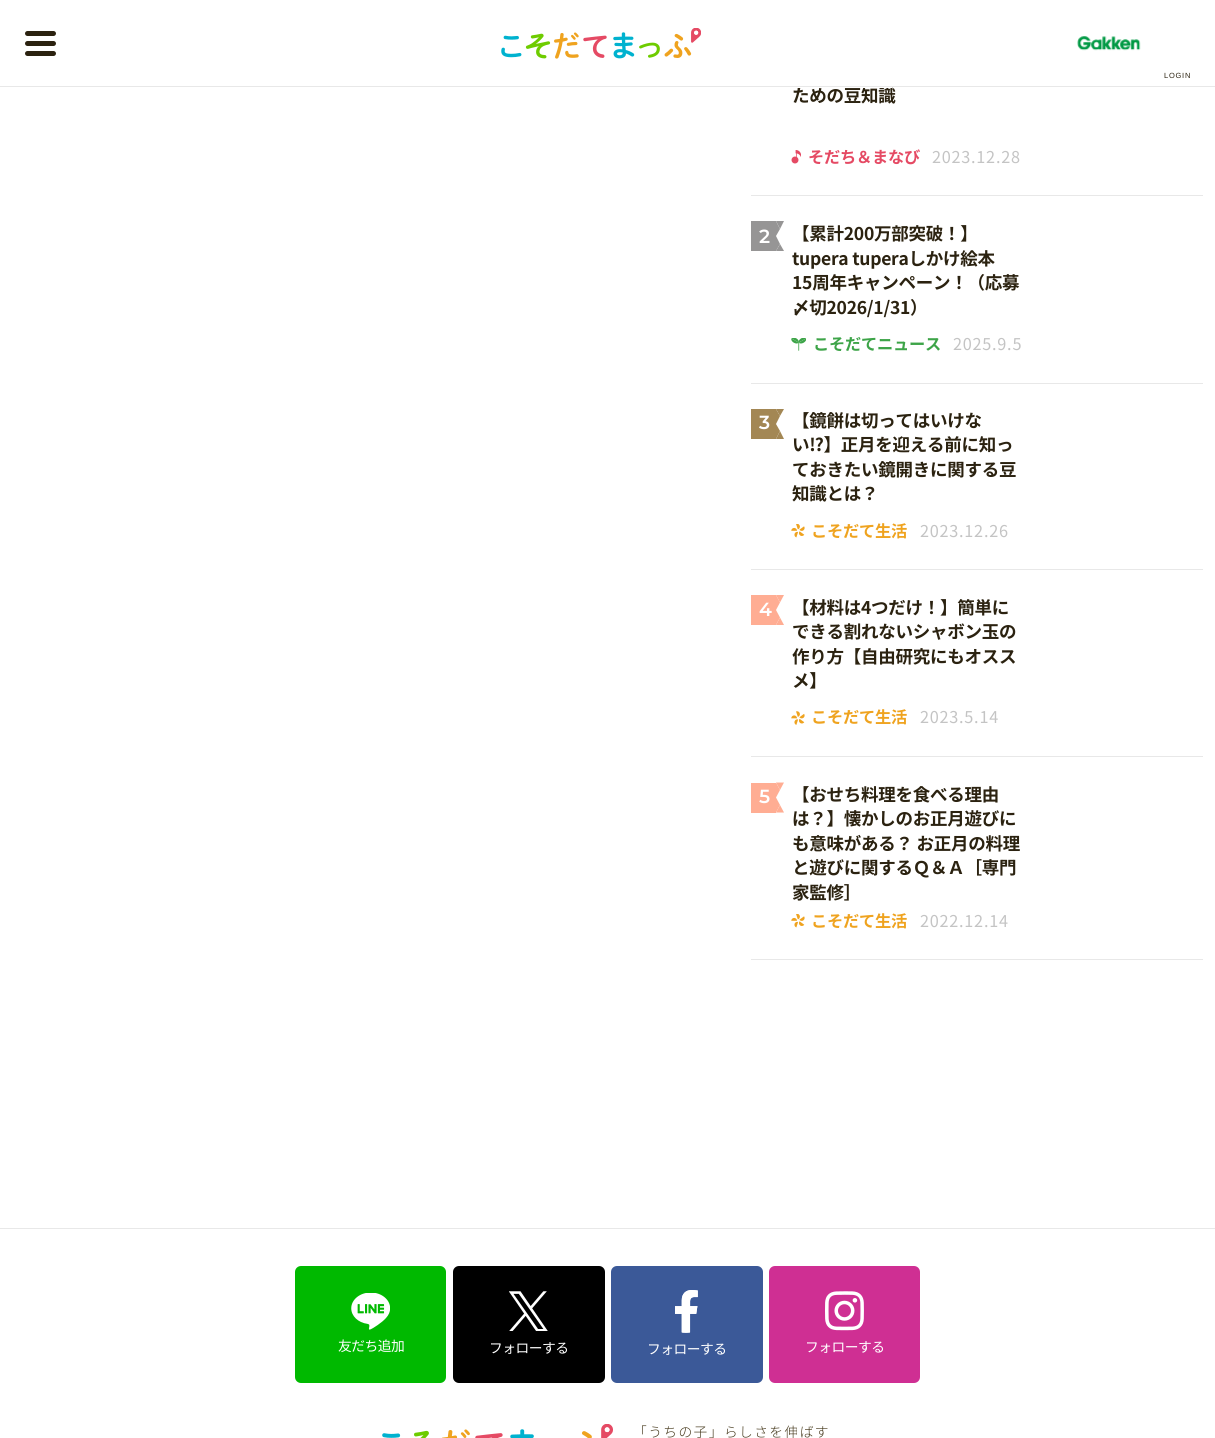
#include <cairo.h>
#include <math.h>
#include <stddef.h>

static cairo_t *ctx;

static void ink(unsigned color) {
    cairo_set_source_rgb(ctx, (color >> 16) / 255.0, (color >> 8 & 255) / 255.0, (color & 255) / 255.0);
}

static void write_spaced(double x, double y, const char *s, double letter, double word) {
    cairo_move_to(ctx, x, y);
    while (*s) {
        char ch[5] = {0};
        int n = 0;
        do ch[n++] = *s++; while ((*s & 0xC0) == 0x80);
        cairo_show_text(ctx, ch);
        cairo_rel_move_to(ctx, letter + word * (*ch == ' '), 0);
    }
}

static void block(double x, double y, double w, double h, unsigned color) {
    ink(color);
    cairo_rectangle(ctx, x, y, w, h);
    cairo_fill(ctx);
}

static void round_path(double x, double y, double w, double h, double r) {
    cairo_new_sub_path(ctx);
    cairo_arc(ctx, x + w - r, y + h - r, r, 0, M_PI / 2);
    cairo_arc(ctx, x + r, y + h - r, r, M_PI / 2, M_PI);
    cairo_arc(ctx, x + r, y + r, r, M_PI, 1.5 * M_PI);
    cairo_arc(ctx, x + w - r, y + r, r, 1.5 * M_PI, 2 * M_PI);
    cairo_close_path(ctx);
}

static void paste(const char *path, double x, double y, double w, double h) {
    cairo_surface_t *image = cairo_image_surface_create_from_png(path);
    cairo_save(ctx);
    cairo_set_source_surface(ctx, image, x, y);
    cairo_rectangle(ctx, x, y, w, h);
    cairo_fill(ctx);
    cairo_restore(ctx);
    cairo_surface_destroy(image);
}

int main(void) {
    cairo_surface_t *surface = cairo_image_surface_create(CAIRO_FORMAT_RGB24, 1215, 1438);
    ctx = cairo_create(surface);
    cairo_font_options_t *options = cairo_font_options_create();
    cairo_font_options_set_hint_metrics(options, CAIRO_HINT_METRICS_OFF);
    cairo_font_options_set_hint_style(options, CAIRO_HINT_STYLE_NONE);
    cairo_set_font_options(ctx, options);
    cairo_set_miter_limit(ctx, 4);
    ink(0xffffff);
    cairo_paint(ctx);
    cairo_select_font_face(ctx, "Noto Sans JP", CAIRO_FONT_SLANT_NORMAL, CAIRO_FONT_WEIGHT_BOLD);
    cairo_set_font_size(ctx, 17.5);
    ink(0x2b2210);
    write_spaced(792, 102, "ための豆知識", -0.25, 0);
    block(797, 87, 95, 1, 0xffffff);
    block(0, 86, 1215, 1, 0xe8e8e8);
    ink(0x2b2210);
    round_path(25, 31, 31, 5, 2.5);
    cairo_fill(ctx);
    round_path(25, 41, 31, 5, 2.5);
    cairo_fill(ctx);
    round_path(25, 51, 31, 5, 2.5);
    cairo_fill(ctx);
    paste("pic1.png", 501, 28, 200, 31);
    paste("pic2.png", 1077, 36, 64, 15);
    cairo_select_font_face(ctx, "Liberation Sans", CAIRO_FONT_SLANT_NORMAL, CAIRO_FONT_WEIGHT_NORMAL);
    cairo_set_font_size(ctx, 7.5);
    write_spaced(1164, 78, "LOGIN", 0.75, 0);
    block(751, 195, 452, 1, 0xe8e8e8);
    paste("pic3.png", 791, 150, 10, 14);
    cairo_select_font_face(ctx, "Noto Sans JP", CAIRO_FONT_SLANT_NORMAL, CAIRO_FONT_WEIGHT_BOLD);
    cairo_set_font_size(ctx, 16.25);
    ink(0xe54a64);
    write_spaced(808, 163, "そだち＆まなび", -0.25, 0);
    cairo_select_font_face(ctx, "Noto Sans JP", CAIRO_FONT_SLANT_NORMAL, CAIRO_FONT_WEIGHT_NORMAL);
    ink(0xc4c4c4);
    write_spaced(932, 163, "2023.12.28", 0.75, 0);
    block(751, 383, 452, 1, 0xe8e8e8);
    block(751, 221, 25, 30, 0x969595);
    cairo_select_font_face(ctx, "Montserrat Thin", CAIRO_FONT_SLANT_NORMAL, CAIRO_FONT_WEIGHT_NORMAL);
    cairo_set_font_size(ctx, 19);
    ink(0xffffff);
    write_spaced(759, 243, "2", -0.25, 0);
    ink(0x969595);
    cairo_new_path(ctx);
    cairo_move_to(ctx, 776, 221);
    cairo_line_to(ctx, 784, 221);
    cairo_line_to(ctx, 780, 229);
    cairo_close_path(ctx);
    cairo_fill(ctx);
    cairo_new_path(ctx);
    cairo_move_to(ctx, 776, 236);
    cairo_line_to(ctx, 776, 221);
    cairo_line_to(ctx, 780, 229);
    cairo_close_path(ctx);
    cairo_move_to(ctx, 784, 251);
    cairo_line_to(ctx, 776, 251);
    cairo_line_to(ctx, 780, 244);
    cairo_close_path(ctx);
    cairo_fill(ctx);
    cairo_new_path(ctx);
    cairo_move_to(ctx, 776, 251);
    cairo_line_to(ctx, 776, 236);
    cairo_line_to(ctx, 780, 244);
    cairo_close_path(ctx);
    cairo_fill(ctx);
    cairo_select_font_face(ctx, "Noto Sans JP", CAIRO_FONT_SLANT_NORMAL, CAIRO_FONT_WEIGHT_BOLD);
    cairo_set_font_size(ctx, 17.5);
    ink(0x2b2210);
    write_spaced(792, 240, "【累計200万部突破！】", -0.25, 0);
    write_spaced(792, 265, "tupera tuperaしかけ絵本", -0.25, 0);
    write_spaced(792, 289, "15周年キャンペーン！（応募", -0.25, 0);
    write_spaced(792, 314, "〆切2026/1/31）", -0.25, 0);
    paste("pic4.png", 791, 338, 15, 13);
    cairo_set_font_size(ctx, 16.25);
    ink(0x3da448);
    write_spaced(813, 350, "こそだてニュース", -0.25, 0);
    cairo_select_font_face(ctx, "Noto Sans JP", CAIRO_FONT_SLANT_NORMAL, CAIRO_FONT_WEIGHT_NORMAL);
    ink(0xc4c4c4);
    write_spaced(953, 350, "2025.9.5", 0.75, 0);
    block(751, 569, 452, 1, 0xe8e8e8);
    block(751, 409, 25, 30, 0xa38754);
    cairo_select_font_face(ctx, "Montserrat Thin", CAIRO_FONT_SLANT_NORMAL, CAIRO_FONT_WEIGHT_NORMAL);
    cairo_set_font_size(ctx, 19);
    ink(0xffffff);
    write_spaced(759, 429, "3", -0.25, 0);
    ink(0xa38754);
    cairo_new_path(ctx);
    cairo_move_to(ctx, 776, 409);
    cairo_line_to(ctx, 784, 409);
    cairo_line_to(ctx, 780, 416);
    cairo_close_path(ctx);
    cairo_fill(ctx);
    cairo_new_path(ctx);
    cairo_move_to(ctx, 776, 424);
    cairo_line_to(ctx, 776, 409);
    cairo_line_to(ctx, 780, 416);
    cairo_close_path(ctx);
    cairo_move_to(ctx, 784, 439);
    cairo_line_to(ctx, 776, 439);
    cairo_line_to(ctx, 780, 431);
    cairo_close_path(ctx);
    cairo_fill(ctx);
    cairo_new_path(ctx);
    cairo_move_to(ctx, 776, 439);
    cairo_line_to(ctx, 776, 424);
    cairo_line_to(ctx, 780, 431);
    cairo_close_path(ctx);
    cairo_fill(ctx);
    cairo_select_font_face(ctx, "Noto Sans JP", CAIRO_FONT_SLANT_NORMAL, CAIRO_FONT_WEIGHT_BOLD);
    cairo_set_font_size(ctx, 17.5);
    ink(0x2b2210);
    write_spaced(792, 427, "【鏡餅は切ってはいけな", -0.25, 0);
    write_spaced(792, 451, "い⁉】正月を迎える前に知っ", -0.25, 0);
    write_spaced(792, 476, "ておきたい鏡開きに関する豆", -0.25, 0);
    write_spaced(792, 500, "知識とは？", -0.25, 0);
    paste("pic5.png", 791, 524, 14, 14);
    cairo_set_font_size(ctx, 16.25);
    ink(0xefa31f);
    write_spaced(811, 537, "こそだて生活", -0.25, 0);
    cairo_select_font_face(ctx, "Noto Sans JP", CAIRO_FONT_SLANT_NORMAL, CAIRO_FONT_WEIGHT_NORMAL);
    ink(0xc4c4c4);
    write_spaced(920, 537, "2023.12.26", 0.75, 0);
    block(751, 756, 452, 1, 0xe8e8e8);
    block(751, 595, 25, 30, 0xffad93);
    cairo_select_font_face(ctx, "Montserrat Thin", CAIRO_FONT_SLANT_NORMAL, CAIRO_FONT_WEIGHT_NORMAL);
    cairo_set_font_size(ctx, 19);
    ink(0xffffff);
    write_spaced(759, 616, "4", -0.25, 0);
    ink(0xffad93);
    cairo_new_path(ctx);
    cairo_move_to(ctx, 776, 595);
    cairo_line_to(ctx, 784, 595);
    cairo_line_to(ctx, 780, 602.5);
    cairo_close_path(ctx);
    cairo_fill(ctx);
    cairo_new_path(ctx);
    cairo_move_to(ctx, 776, 610);
    cairo_line_to(ctx, 776, 595);
    cairo_line_to(ctx, 780, 602.5);
    cairo_close_path(ctx);
    cairo_move_to(ctx, 784, 625);
    cairo_line_to(ctx, 776, 625);
    cairo_line_to(ctx, 780, 617.5);
    cairo_close_path(ctx);
    cairo_fill(ctx);
    cairo_new_path(ctx);
    cairo_move_to(ctx, 776, 625);
    cairo_line_to(ctx, 776, 610);
    cairo_line_to(ctx, 780, 617.5);
    cairo_close_path(ctx);
    cairo_fill(ctx);
    cairo_select_font_face(ctx, "Noto Sans JP", CAIRO_FONT_SLANT_NORMAL, CAIRO_FONT_WEIGHT_BOLD);
    cairo_set_font_size(ctx, 17.5);
    ink(0x2b2210);
    write_spaced(792, 614, "【材料は4つだけ！】簡単に", -0.25, 0);
    write_spaced(792, 638, "できる割れないシャボン玉の", -0.25, 0);
    write_spaced(792, 663, "作り方【自由研究にもオスス", -0.25, 0);
    write_spaced(792, 687, "メ】", -0.25, 0);
    paste("pic6.png", 791, 711, 14, 14);
    cairo_set_font_size(ctx, 16.25);
    ink(0xefa31f);
    write_spaced(811, 723, "こそだて生活", -0.25, 0);
    cairo_select_font_face(ctx, "Noto Sans JP", CAIRO_FONT_SLANT_NORMAL, CAIRO_FONT_WEIGHT_NORMAL);
    ink(0xc4c4c4);
    write_spaced(920, 723, "2023.5.14", 0.75, 0);
    block(751, 959, 452, 1, 0xe8e8e8);
    block(751, 783, 25, 30, 0xffad93);
    cairo_select_font_face(ctx, "Montserrat Thin", CAIRO_FONT_SLANT_NORMAL, CAIRO_FONT_WEIGHT_NORMAL);
    cairo_set_font_size(ctx, 19);
    ink(0xffffff);
    write_spaced(759, 803, "5", -0.25, 0);
    ink(0xffad93);
    cairo_new_path(ctx);
    cairo_move_to(ctx, 776, 782.5);
    cairo_line_to(ctx, 784, 782.5);
    cairo_line_to(ctx, 780, 790);
    cairo_close_path(ctx);
    cairo_fill(ctx);
    cairo_new_path(ctx);
    cairo_move_to(ctx, 776, 797.5);
    cairo_line_to(ctx, 776, 782.5);
    cairo_line_to(ctx, 780, 790);
    cairo_close_path(ctx);
    cairo_move_to(ctx, 784, 812.5);
    cairo_line_to(ctx, 776, 812.5);
    cairo_line_to(ctx, 780, 805);
    cairo_close_path(ctx);
    cairo_fill(ctx);
    cairo_new_path(ctx);
    cairo_move_to(ctx, 776, 812.5);
    cairo_line_to(ctx, 776, 797.5);
    cairo_line_to(ctx, 780, 805);
    cairo_close_path(ctx);
    cairo_fill(ctx);
    cairo_select_font_face(ctx, "Noto Sans JP", CAIRO_FONT_SLANT_NORMAL, CAIRO_FONT_WEIGHT_BOLD);
    cairo_set_font_size(ctx, 17.5);
    ink(0x2b2210);
    write_spaced(792, 801, "【おせち料理を食べる理由", -0.25, 0);
    write_spaced(792, 825, "は？】懐かしのお正月遊びに", -0.25, 0);
    write_spaced(792, 850, "も意味がある？ お正月の料理", -0.25, 0);
    write_spaced(792, 874, "と遊びに関するＱ＆Ａ［専門", -0.25, 0);
    write_spaced(792, 899, "家監修］", -0.25, 0);
    paste("pic5.png", 791, 914, 14, 14);
    cairo_set_font_size(ctx, 16.25);
    ink(0xefa31f);
    write_spaced(811, 927, "こそだて生活", -0.25, 0);
    cairo_select_font_face(ctx, "Noto Sans JP", CAIRO_FONT_SLANT_NORMAL, CAIRO_FONT_WEIGHT_NORMAL);
    ink(0xc4c4c4);
    write_spaced(920, 927, "2022.12.14", 0.75, 0);
    block(0, 1228, 1215, 1, 0xe8e8e8);
    ink(0x00b900);
    round_path(295, 1266, 151, 117, 6);
    cairo_fill(ctx);
    paste("pic7.png", 351, 1293, 39, 37);
    cairo_set_font_size(ctx, 13.75);
    ink(0xffffff);
    write_spaced(338, 1351, "友だち追加", -0.5, 0);
    ink(0x000000);
    round_path(453, 1266, 152, 117, 6);
    cairo_fill(ctx);
    paste("pic8.png", 509, 1291, 39, 40);
    ink(0xffffff);
    write_spaced(489, 1353, "フォローする", -0.5, 0);
    ink(0x3b5998);
    round_path(611, 1266, 152, 117, 6);
    cairo_fill(ctx);
    paste("pic9.png", 675, 1290, 23, 43);
    ink(0xffffff);
    write_spaced(647, 1354, "フォローする", -0.5, 0);
    ink(0xcf2f93);
    round_path(769, 1266, 151, 117, 6);
    cairo_fill(ctx);
    paste("pic10.png", 825, 1291, 39, 40);
    ink(0xffffff);
    write_spaced(805, 1352, "フォローする", -0.5, 0);
    paste("pic11.png", 382, 1424, 231, 14);
    cairo_select_font_face(ctx, "Noto Sans JP Light", CAIRO_FONT_SLANT_NORMAL, CAIRO_FONT_WEIGHT_NORMAL);
    ink(0x44371a);
    write_spaced(633, 1437, "「うちの子」らしさを伸ばす", 1.4, 0);
    cairo_surface_write_to_png(surface, "screenshot.png");
    cairo_font_options_destroy(options);
    cairo_destroy(ctx);
    cairo_surface_destroy(surface);
    return 0;
}
